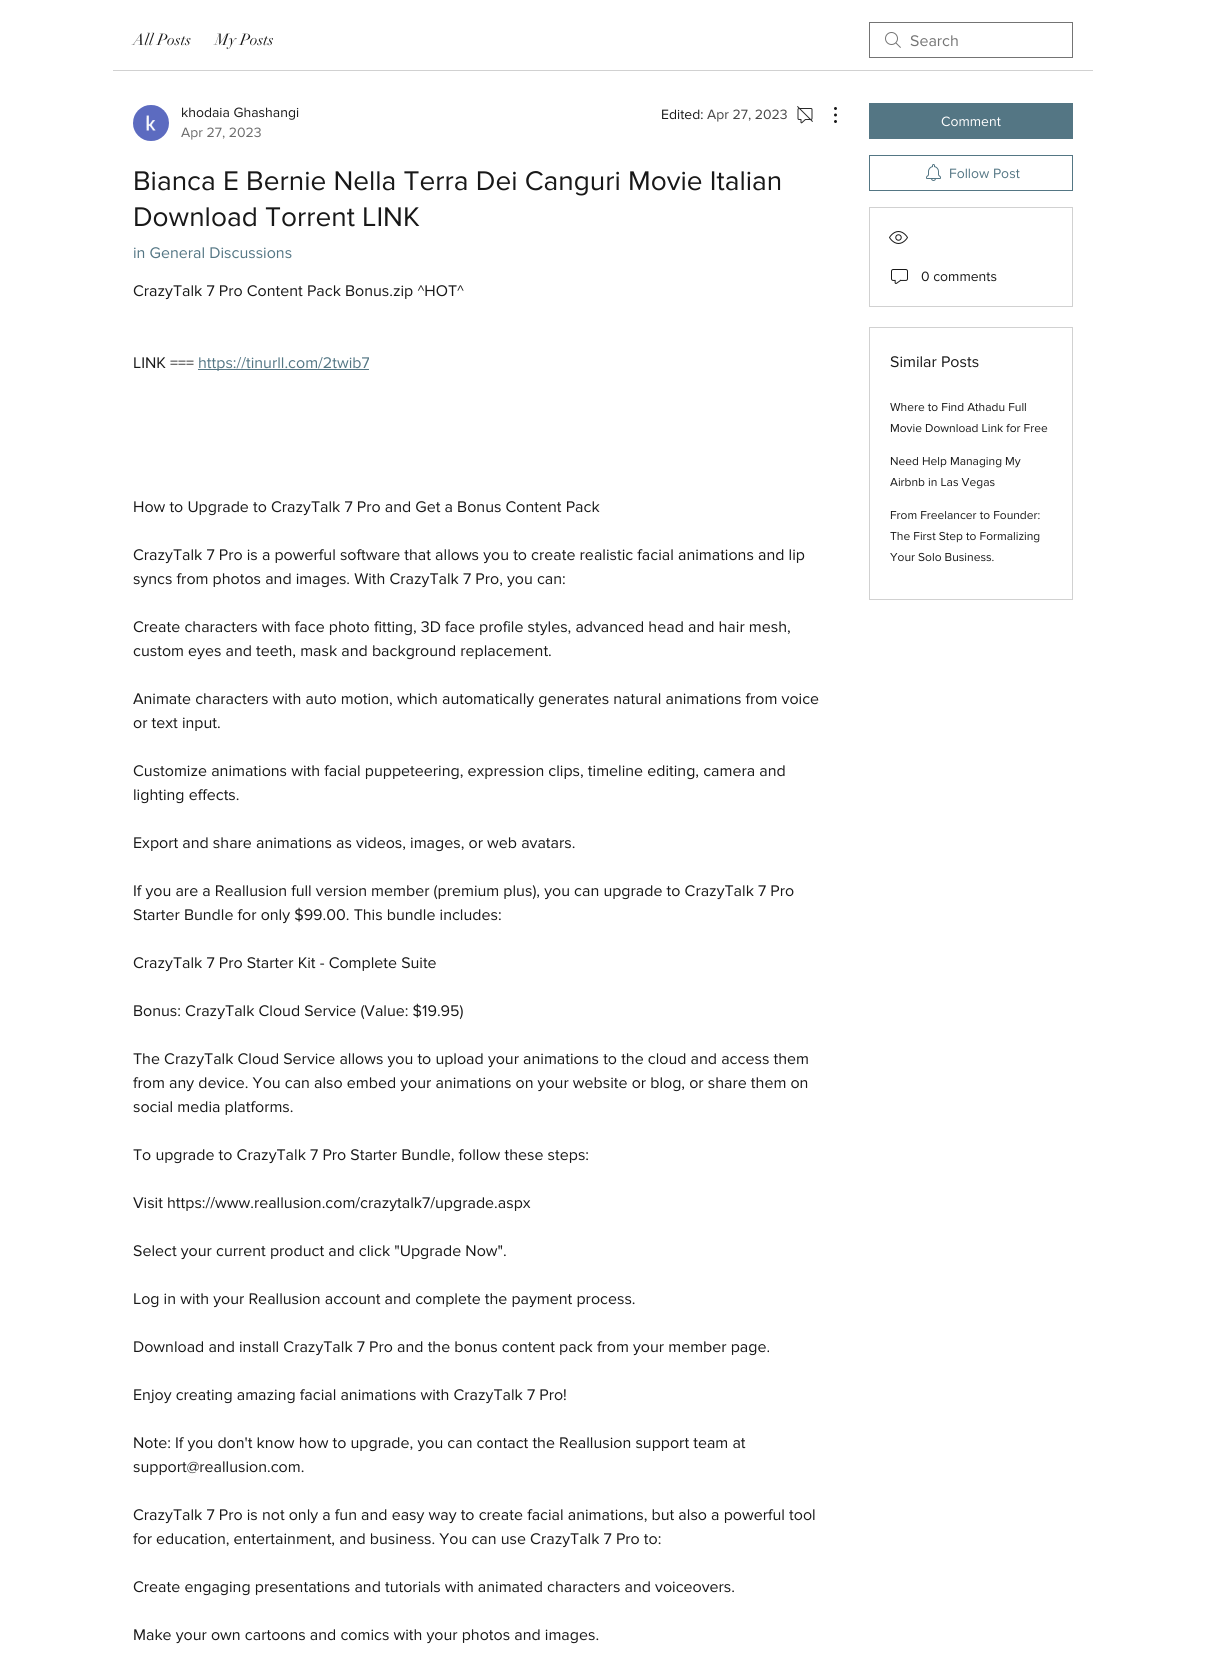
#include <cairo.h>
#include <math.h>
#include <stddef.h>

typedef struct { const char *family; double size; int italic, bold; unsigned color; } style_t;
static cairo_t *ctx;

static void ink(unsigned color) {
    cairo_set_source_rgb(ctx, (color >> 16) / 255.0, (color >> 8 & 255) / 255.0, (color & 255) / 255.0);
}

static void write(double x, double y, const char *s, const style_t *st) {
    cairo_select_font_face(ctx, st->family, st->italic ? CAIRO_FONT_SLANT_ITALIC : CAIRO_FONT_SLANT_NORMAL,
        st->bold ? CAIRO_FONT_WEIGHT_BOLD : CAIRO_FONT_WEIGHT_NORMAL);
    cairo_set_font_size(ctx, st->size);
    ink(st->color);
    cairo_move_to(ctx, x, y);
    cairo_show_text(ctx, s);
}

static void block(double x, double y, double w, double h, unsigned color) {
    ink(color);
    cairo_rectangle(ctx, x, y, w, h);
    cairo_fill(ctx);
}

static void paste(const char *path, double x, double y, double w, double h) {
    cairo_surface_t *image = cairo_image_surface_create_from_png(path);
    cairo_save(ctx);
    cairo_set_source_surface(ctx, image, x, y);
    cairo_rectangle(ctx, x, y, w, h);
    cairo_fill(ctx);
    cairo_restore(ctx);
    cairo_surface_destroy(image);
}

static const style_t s1 = {"didot", 16, 0, 0, 0x181818};
static const style_t s2 = {"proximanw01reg", 16, 0, 0, 0x747474};
static const style_t s3 = {"proximanw01reg", 14, 0, 0, 0x181818};
static const style_t s4 = {"proximanw01reg", 14, 0, 0, 0x6b6b6b};
static const style_t s5 = {"proximanw01reg", 14, 0, 0, 0x464646};
static const style_t s6 = {"proximanw01reg", 28, 0, 0, 0x181818};
static const style_t s7 = {"proximanw01reg", 16, 0, 0, 0x547684};
static const style_t s8 = {"proximanw01reg", 16, 0, 0, 0x181818};
static const style_t s9 = {"proximanw01reg", 14, 0, 0, 0xffffff};
static const style_t s10 = {"proximanw01reg", 14, 0, 0, 0x547684};
static const style_t s11 = {"proximanw01reg", 12, 0, 0, 0x181818};

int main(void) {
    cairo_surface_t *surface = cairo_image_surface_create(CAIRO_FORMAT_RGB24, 1205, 1676);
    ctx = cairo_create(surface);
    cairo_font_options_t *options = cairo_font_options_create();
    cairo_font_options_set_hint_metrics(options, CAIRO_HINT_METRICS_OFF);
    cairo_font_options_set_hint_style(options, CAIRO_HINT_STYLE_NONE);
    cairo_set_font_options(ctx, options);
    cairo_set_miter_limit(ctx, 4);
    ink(0xffffff);
    cairo_paint(ctx);
    block(113, 70, 980, 1, 0xd1d1d1);
    write(133, 45, "All Posts", &s1);
    write(215, 45, "My Posts", &s1);
    paste("pic1.png", 885, 32, 16, 16);
    cairo_rectangle(ctx, 869.5, 22.5, 203, 35);
    ink(0x747474);
    cairo_set_line_width(ctx, 1);
    cairo_stroke(ctx);
    write(910, 46, "Search", &s2);
    paste("pic2.png", 133, 105, 36, 36);
    write(181, 117, "khodaia Ghashangi", &s3);
    write(181, 137, "Apr 27, 2023", &s4);
    write(661, 119, "Edited:", &s3);
    write(707, 119, "Apr 27, 2023", &s5);
    paste("pic3.png", 797, 106, 16, 18);
    paste("pic4.png", 834, 107, 3, 16);
    write(133, 190, "Bianca E Bernie Nella Terra Dei Canguri Movie Italian", &s6);
    write(133, 226, "Download Torrent LINK", &s6);
    write(133, 258, "in General Discussions", &s7);
    write(133, 296, "CrazyTalk 7 Pro Content Pack Bonus.zip ^HOT^", &s8);
    write(133, 368, "LINK ===", &s8);
    block(198, 369, 171, 1, 0x547684);
    write(198, 368, "https://tinurll.com/2twib7", &s7);
    write(133, 512, "How to Upgrade to CrazyTalk 7 Pro and Get a Bonus Content Pack", &s8);
    write(133, 560, "CrazyTalk 7 Pro is a powerful software that allows you to create realistic facial animations and lip", &s8);
    write(133, 584, "syncs from photos and images. With CrazyTalk 7 Pro, you can:", &s8);
    write(133, 632, "Create characters with face photo fitting, 3D face profile styles, advanced head and hair mesh,", &s8);
    write(133, 656, "custom eyes and teeth, mask and background replacement.", &s8);
    write(133, 704, "Animate characters with auto motion, which automatically generates natural animations from voice", &s8);
    write(133, 728, "or text input.", &s8);
    write(133, 776, "Customize animations with facial puppeteering, expression clips, timeline editing, camera and", &s8);
    write(133, 800, "lighting effects.", &s8);
    write(133, 848, "Export and share animations as videos, images, or web avatars.", &s8);
    write(133, 896, "If you are a Reallusion full version member (premium plus), you can upgrade to CrazyTalk 7 Pro", &s8);
    write(133, 920, "Starter Bundle for only $99.00. This bundle includes:", &s8);
    write(133, 968, "CrazyTalk 7 Pro Starter Kit - Complete Suite", &s8);
    write(133, 1016, "Bonus: CrazyTalk Cloud Service (Value: $19.95)", &s8);
    write(133, 1064, "The CrazyTalk Cloud Service allows you to upload your animations to the cloud and access them", &s8);
    write(133, 1088, "from any device. You can also embed your animations on your website or blog, or share them on", &s8);
    write(133, 1112, "social media platforms.", &s8);
    write(133, 1160, "To upgrade to CrazyTalk 7 Pro Starter Bundle, follow these steps:", &s8);
    write(133, 1208, "Visit https://www.reallusion.com/crazytalk7/upgrade.aspx", &s8);
    write(133, 1256, "Select your current product and click \"Upgrade Now\".", &s8);
    write(133, 1304, "Log in with your Reallusion account and complete the payment process.", &s8);
    write(133, 1352, "Download and install CrazyTalk 7 Pro and the bonus content pack from your member page.", &s8);
    write(133, 1400, "Enjoy creating amazing facial animations with CrazyTalk 7 Pro!", &s8);
    write(133, 1448, "Note: If you don't know how to upgrade, you can contact the Reallusion support team at", &s8);
    write(133, 1472, "support@reallusion.com.", &s8);
    write(133, 1520, "CrazyTalk 7 Pro is not only a fun and easy way to create facial animations, but also a powerful tool", &s8);
    write(133, 1544, "for education, entertainment, and business. You can use CrazyTalk 7 Pro to:", &s8);
    write(133, 1592, "Create engaging presentations and tutorials with animated characters and voiceovers.", &s8);
    write(133, 1640, "Make your own cartoons and comics with your photos and images.", &s8);
    block(869, 103, 204, 36, 0x547684);
    write(941, 126, "Comment", &s9);
    cairo_rectangle(ctx, 869.5, 155.5, 203, 35);
    ink(0x547684);
    cairo_stroke(ctx);
    paste("pic5.png", 926, 164, 15, 17);
    write(949, 178, "Follow Post", &s10);
    cairo_rectangle(ctx, 869.5, 207.5, 203, 99);
    ink(0xd1d1d1);
    cairo_stroke(ctx);
    paste("pic6.png", 889, 231, 19, 13);
    paste("pic7.png", 891, 269, 17, 15);
    write(921, 281, "0 comments", &s3);
    cairo_rectangle(ctx, 869.5, 327.5, 203, 272);
    ink(0xd1d1d1);
    cairo_stroke(ctx);
    write(890, 367, "Similar Posts", &s8);
    write(890, 411, "Where to Find Athadu Full", &s11);
    write(890, 432, "Movie Download Link for Free", &s11);
    write(890, 465, "Need Help Managing My", &s11);
    write(890, 486, "Airbnb in Las Vegas", &s11);
    write(890, 519, "From Freelancer to Founder:", &s11);
    write(890, 540, "The First Step to Formalizing", &s11);
    write(890, 561, "Your Solo Business.", &s11);
    cairo_surface_write_to_png(surface, "screenshot.png");
    cairo_font_options_destroy(options);
    cairo_destroy(ctx);
    cairo_surface_destroy(surface);
    return 0;
}
